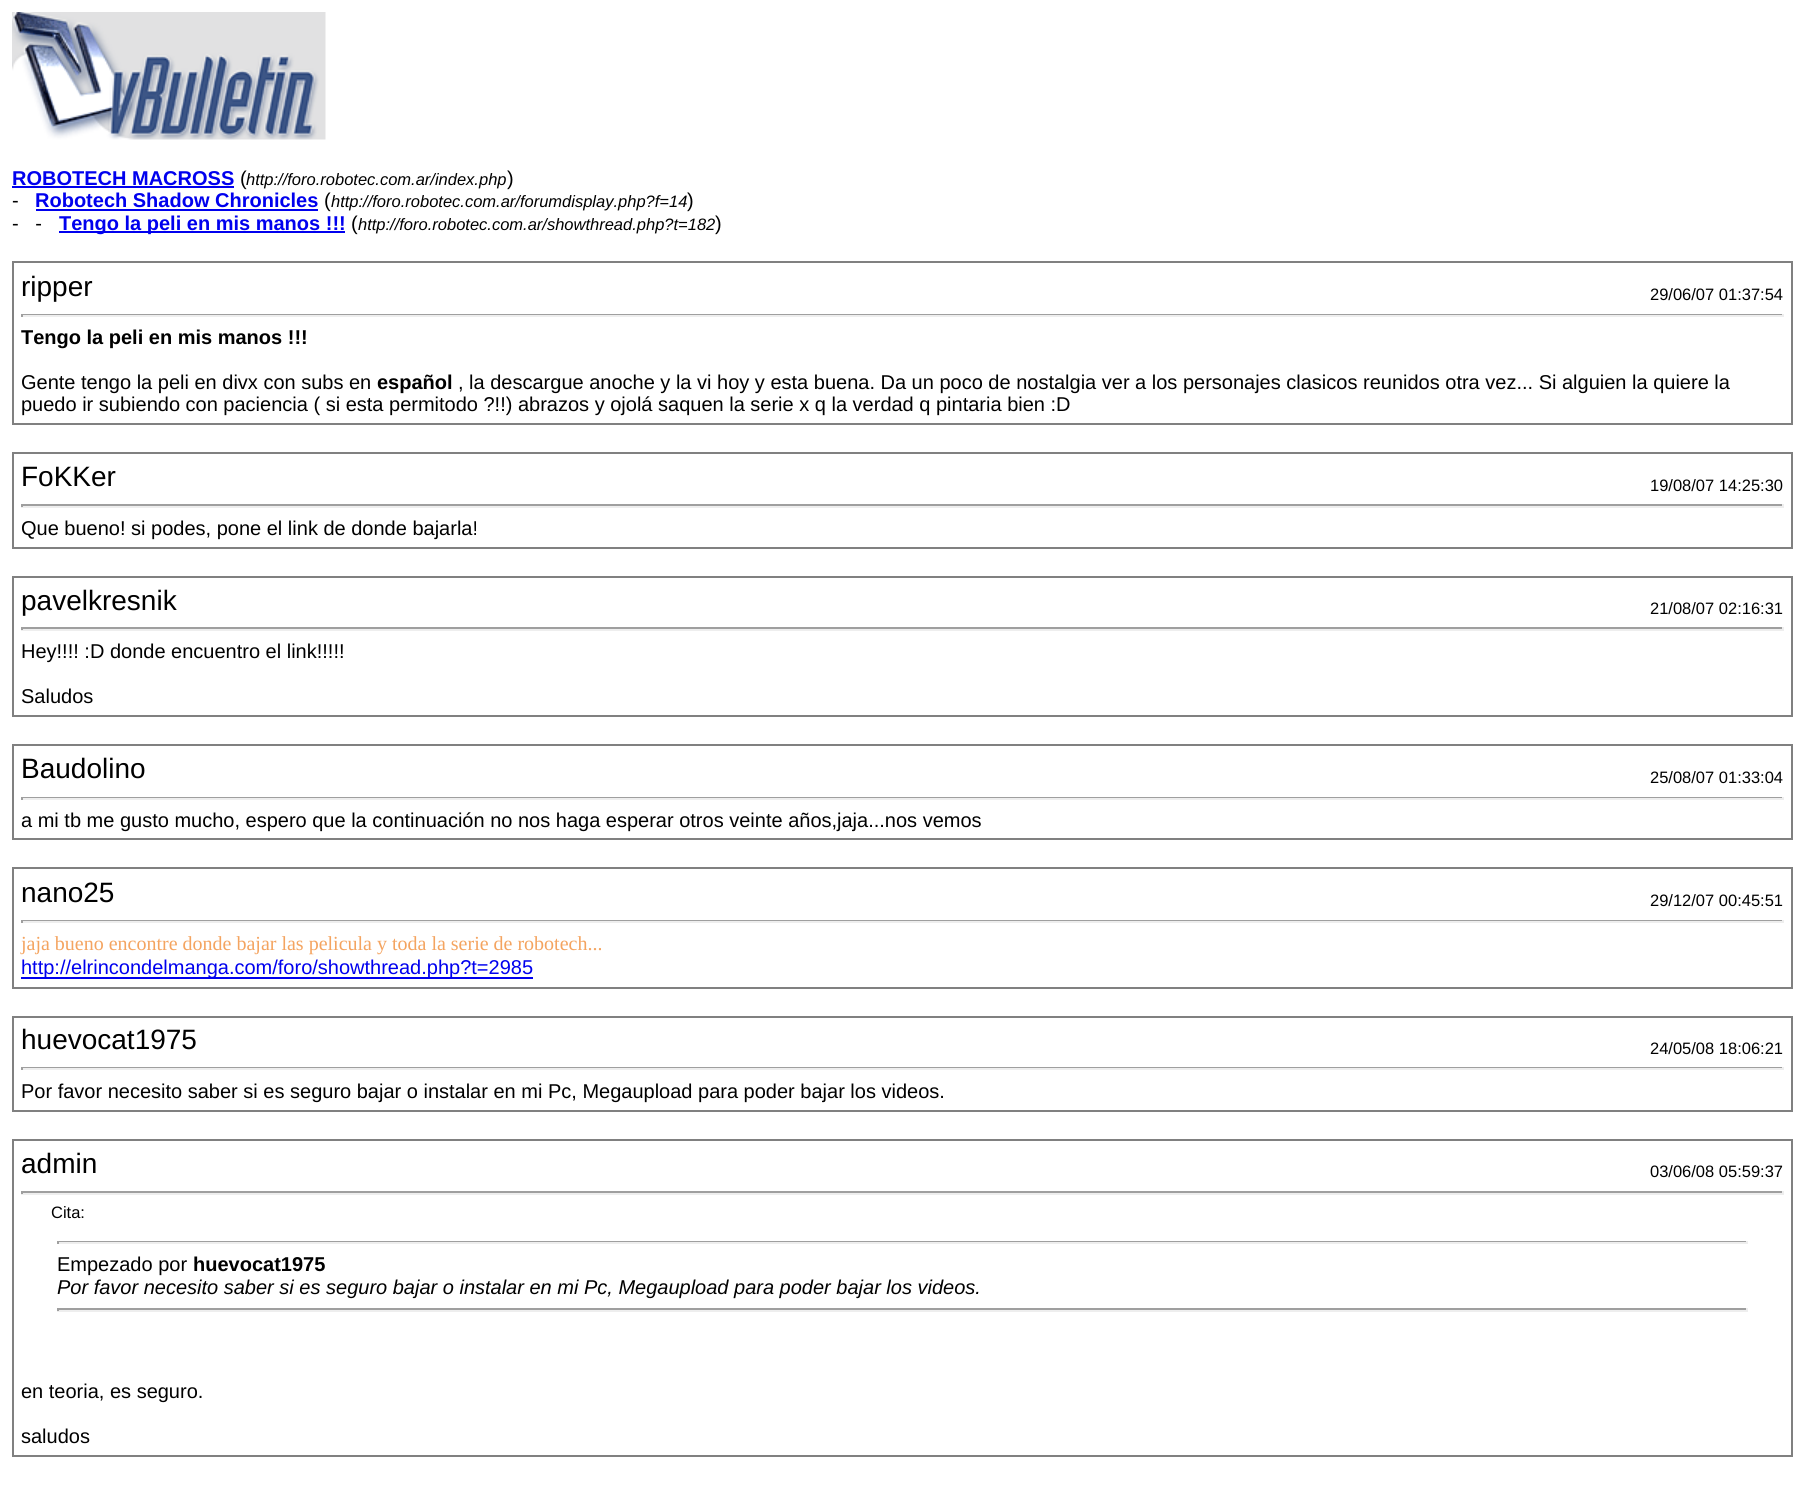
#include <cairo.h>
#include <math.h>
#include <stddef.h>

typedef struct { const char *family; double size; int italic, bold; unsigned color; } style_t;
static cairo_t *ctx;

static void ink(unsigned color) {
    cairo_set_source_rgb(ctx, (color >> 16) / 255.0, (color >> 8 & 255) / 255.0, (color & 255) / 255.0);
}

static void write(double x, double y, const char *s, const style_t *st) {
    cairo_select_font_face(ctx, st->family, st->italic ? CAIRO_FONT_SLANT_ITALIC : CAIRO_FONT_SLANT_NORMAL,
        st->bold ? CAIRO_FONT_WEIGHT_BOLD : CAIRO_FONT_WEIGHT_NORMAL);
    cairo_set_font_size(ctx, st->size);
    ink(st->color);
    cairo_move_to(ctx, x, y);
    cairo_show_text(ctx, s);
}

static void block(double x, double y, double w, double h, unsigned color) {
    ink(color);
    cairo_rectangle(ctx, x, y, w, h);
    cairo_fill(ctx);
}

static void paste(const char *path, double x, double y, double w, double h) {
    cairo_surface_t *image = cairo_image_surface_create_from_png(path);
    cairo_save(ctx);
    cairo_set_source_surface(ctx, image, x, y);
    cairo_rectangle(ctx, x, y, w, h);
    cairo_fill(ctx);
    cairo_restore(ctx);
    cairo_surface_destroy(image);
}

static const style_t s1 = {"Liberation Sans", 20, 0, 1, 0x0000ee};
static const style_t s2 = {"Liberation Sans", 20, 0, 0, 0x000000};
static const style_t s3 = {"Liberation Sans", 16.5, 1, 0, 0x000000};
static const style_t s4 = {"Liberation Sans", 28, 0, 0, 0x000000};
static const style_t s5 = {"Liberation Sans", 16.5, 0, 0, 0x000000};
static const style_t s6 = {"Liberation Sans", 20, 0, 1, 0x000000};
static const style_t s7 = {"Liberation Serif", 20, 0, 0, 0xf4a460};
static const style_t s8 = {"Liberation Sans", 20, 0, 0, 0x0000ee};
static const style_t s9 = {"Liberation Sans", 20, 1, 0, 0x000000};

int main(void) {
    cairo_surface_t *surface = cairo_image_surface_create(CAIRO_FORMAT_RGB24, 1804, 1488);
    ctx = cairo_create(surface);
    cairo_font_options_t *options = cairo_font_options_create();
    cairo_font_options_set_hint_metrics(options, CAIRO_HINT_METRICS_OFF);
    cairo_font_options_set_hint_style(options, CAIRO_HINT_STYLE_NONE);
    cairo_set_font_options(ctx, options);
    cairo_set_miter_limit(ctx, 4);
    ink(0xffffff);
    cairo_paint(ctx);
    paste("pic1.png", 12, 12, 314, 128);
    write(12, 185, "ROBOTECH MACROSS", &s1);
    block(12, 186, 222, 2, 0x0000ee);
    write(240, 185, "(", &s2);
    write(246, 185, "http://foro.robotec.com.ar/index.php", &s3);
    write(507, 185, ")", &s2);
    write(12, 207, "-", &s2);
    write(35, 207, "Robotech Shadow Chronicles", &s1);
    block(36, 209, 282, 2, 0x0000ee);
    write(324, 207, "(", &s2);
    write(331, 207, "http://foro.robotec.com.ar/forumdisplay.php?f=14", &s3);
    write(687, 207, ")", &s2);
    write(12, 230, "-   -", &s2);
    block(59, 231, 286, 2, 0x0000ee);
    write(59, 230, "Tengo la peli en mis manos !!!", &s1);
    write(351, 230, "(", &s2);
    write(358, 230, "http://foro.robotec.com.ar/showthread.php?t=182", &s3);
    write(715, 230, ")", &s2);
    cairo_rectangle(ctx, 13, 262, 1779, 162);
    ink(0x808080);
    cairo_stroke(ctx);
    write(21, 296, "ripper", &s4);
    write(1650, 300, "29/06/07 01:37:54", &s5);
    block(21, 314, 1763, 1, 0x9f9f9f);
    block(1782, 314, 2, 3, 0xeeeeee);
    block(21, 315, 1763, 2, 0xeeeeee);
    block(21, 314, 2, 3, 0x9f9f9f);
    write(21, 344, "Tengo la peli en mis manos !!!", &s6);
    write(21, 389, "Gente tengo la peli en divx con subs en", &s2);
    write(377, 389, "español", &s6);
    write(458, 389, ", la descargue anoche y la vi hoy y esta buena. Da un poco de nostalgia ver a los personajes clasicos reunidos otra vez... Si alguien la quiere la", &s2);
    write(21, 411, "puedo ir subiendo con paciencia ( si esta permitodo ?!!) abrazos y ojolá saquen la serie x q la verdad q pintaria bien :D", &s2);
    cairo_rectangle(ctx, 13, 453, 1779, 95);
    ink(0x808080);
    cairo_stroke(ctx);
    write(21, 486, "FoKKer", &s4);
    write(1650, 491, "19/08/07 14:25:30", &s5);
    block(21, 504, 1763, 2, 0x9f9f9f);
    block(1782, 504, 2, 3, 0xeeeeee);
    block(21, 506, 1763, 2, 0xeeeeee);
    block(21, 504, 2, 3, 0x9f9f9f);
    write(21, 535, "Que bueno! si podes, pone el link de donde bajarla!", &s2);
    cairo_rectangle(ctx, 13, 577, 1779, 139);
    ink(0x808080);
    cairo_stroke(ctx);
    write(21, 610, "pavelkresnik", &s4);
    write(1650, 614, "21/08/07 02:16:31", &s5);
    block(21, 627, 1763, 2, 0x9f9f9f);
    block(1782, 627, 2, 3, 0xeeeeee);
    block(21, 629, 1763, 2, 0xeeeeee);
    block(21, 627, 2, 3, 0x9f9f9f);
    write(21, 658, "Hey!!!! :D donde encuentro el link!!!!!", &s2);
    write(21, 703, "Saludos", &s2);
    cairo_rectangle(ctx, 13, 745, 1779, 94);
    ink(0x808080);
    cairo_stroke(ctx);
    write(21, 778, "Baudolino", &s4);
    write(1650, 783, "25/08/07 01:33:04", &s5);
    block(21, 797, 1763, 1, 0x9f9f9f);
    block(1782, 797, 2, 3, 0xeeeeee);
    block(21, 798, 1763, 2, 0xeeeeee);
    block(21, 797, 2, 3, 0x9f9f9f);
    write(21, 827, "a mi tb me gusto mucho, espero que la continuación no nos haga esperar otros veinte años,jaja...nos vemos", &s2);
    cairo_rectangle(ctx, 13, 868, 1779, 120);
    ink(0x808080);
    cairo_stroke(ctx);
    write(21, 902, "nano25", &s4);
    write(1650, 906, "29/12/07 00:45:51", &s5);
    block(21, 920, 1763, 1, 0x9f9f9f);
    block(1782, 920, 2, 3, 0xeeeeee);
    block(21, 921, 1763, 2, 0xeeeeee);
    block(21, 920, 2, 3, 0x9f9f9f);
    write(21, 950, "jaja bueno encontre donde bajar las pelicula y toda la serie de robotech...", &s7);
    block(21, 977, 512, 2, 0x0000ee);
    write(21, 974, "http://elrincondelmanga.com/foro/showthread.php?t=2985", &s8);
    cairo_rectangle(ctx, 13, 1017, 1779, 94);
    ink(0x808080);
    cairo_stroke(ctx);
    write(21, 1049, "huevocat1975", &s4);
    write(1650, 1054, "24/05/08 18:06:21", &s5);
    block(21, 1067, 1763, 1, 0x9f9f9f);
    block(1782, 1067, 2, 3, 0xeeeeee);
    block(21, 1068, 1763, 2, 0xeeeeee);
    block(21, 1067, 2, 3, 0x9f9f9f);
    write(21, 1098, "Por favor necesito saber si es seguro bajar o instalar en mi Pc, Megaupload para poder bajar los videos.", &s2);
    cairo_rectangle(ctx, 13, 1140, 1779, 316);
    ink(0x808080);
    cairo_stroke(ctx);
    write(21, 1173, "admin", &s4);
    write(1650, 1177, "03/06/08 05:59:37", &s5);
    block(21, 1191, 1763, 2, 0x9f9f9f);
    block(1782, 1191, 2, 3, 0xeeeeee);
    block(21, 1193, 1763, 2, 0xeeeeee);
    block(21, 1191, 2, 3, 0x9f9f9f);
    write(51, 1218, "Cita:", &s5);
    block(57, 1241, 1691, 1, 0x9f9f9f);
    block(1746, 1241, 2, 3, 0xeeeeee);
    block(57, 1242, 1691, 2, 0xeeeeee);
    block(57, 1241, 2, 3, 0x9f9f9f);
    write(57, 1271, "Empezado por", &s2);
    write(193, 1271, "huevocat1975", &s6);
    write(57, 1294, "Por favor necesito saber si es seguro bajar o instalar en mi Pc, Megaupload para poder bajar los videos.", &s9);
    block(57, 1308, 1691, 2, 0x9f9f9f);
    block(1746, 1308, 2, 3, 0xeeeeee);
    block(57, 1310, 1691, 2, 0xeeeeee);
    block(57, 1308, 2, 3, 0x9f9f9f);
    write(21, 1398, "en teoria, es seguro.", &s2);
    write(21, 1443, "saludos", &s2);
    cairo_surface_write_to_png(surface, "screenshot.png");
    cairo_font_options_destroy(options);
    cairo_destroy(ctx);
    cairo_surface_destroy(surface);
    return 0;
}
